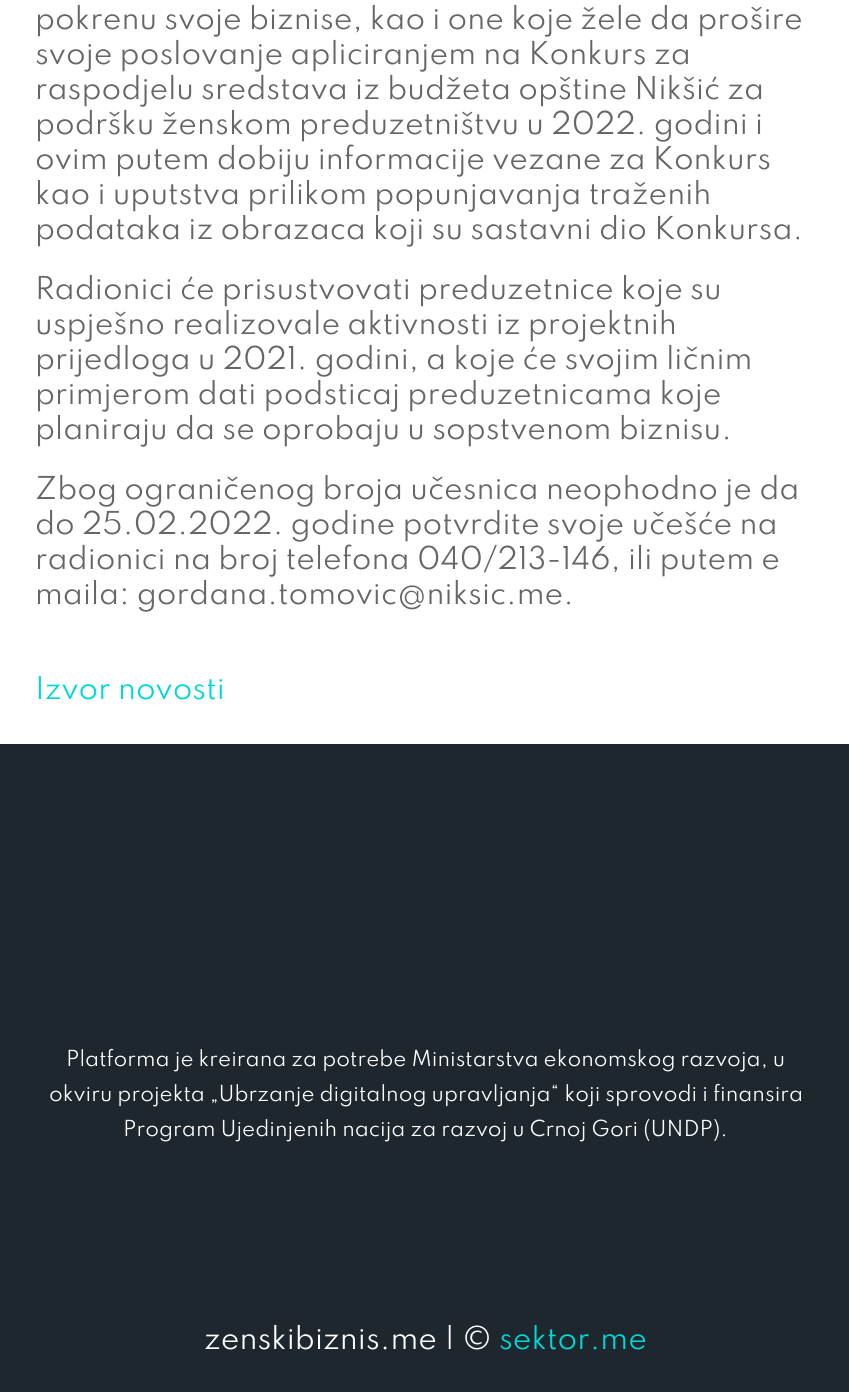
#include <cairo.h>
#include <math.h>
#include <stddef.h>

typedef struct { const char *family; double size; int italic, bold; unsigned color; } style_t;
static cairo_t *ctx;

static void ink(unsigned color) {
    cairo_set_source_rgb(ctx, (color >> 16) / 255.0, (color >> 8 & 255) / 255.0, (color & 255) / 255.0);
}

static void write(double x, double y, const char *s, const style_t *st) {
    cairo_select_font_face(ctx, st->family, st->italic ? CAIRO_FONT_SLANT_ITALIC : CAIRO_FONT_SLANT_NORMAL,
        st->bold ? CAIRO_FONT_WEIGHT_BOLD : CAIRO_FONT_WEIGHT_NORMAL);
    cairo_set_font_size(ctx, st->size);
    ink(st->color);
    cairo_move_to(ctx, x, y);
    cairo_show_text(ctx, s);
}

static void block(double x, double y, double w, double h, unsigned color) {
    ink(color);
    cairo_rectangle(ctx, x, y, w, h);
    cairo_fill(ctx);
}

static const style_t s1 = {"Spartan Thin", 28, 0, 0, 0x666666};
static const style_t s2 = {"Spartan Thin", 28, 0, 0, 0x00d8d6};
static const style_t s3 = {"Spartan Thin", 19.6, 0, 0, 0xffffff};
static const style_t s4 = {"Spartan Thin", 28, 0, 0, 0xffffff};

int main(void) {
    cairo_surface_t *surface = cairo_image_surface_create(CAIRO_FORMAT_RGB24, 849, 1392);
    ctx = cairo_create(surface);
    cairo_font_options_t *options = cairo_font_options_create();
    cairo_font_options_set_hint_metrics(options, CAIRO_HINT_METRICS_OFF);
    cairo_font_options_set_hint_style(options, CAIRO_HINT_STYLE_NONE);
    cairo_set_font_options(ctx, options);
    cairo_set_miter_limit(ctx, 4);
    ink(0xffffff);
    cairo_paint(ctx);
    write(35, 29, "pokrenu svoje biznise, kao i one koje žele da prošire", &s1);
    write(35, 64, "svoje poslovanje apliciranjem na Konkurs za", &s1);
    write(35, 99, "raspodjelu sredstava iz budžeta opštine Nikšić za", &s1);
    write(35, 134, "podršku ženskom preduzetništvu u 2022. godini i", &s1);
    write(35, 169, "ovim putem dobiju informacije vezane za Konkurs", &s1);
    write(35, 204, "kao i uputstva prilikom popunjavanja traženih", &s1);
    write(35, 239, "podataka iz obrazaca koji su sastavni dio Konkursa.", &s1);
    write(35, 299, "Radionici će prisustvovati preduzetnice koje su", &s1);
    write(35, 334, "uspješno realizovale aktivnosti iz projektnih", &s1);
    write(35, 369, "prijedloga u 2021. godini, a koje će svojim ličnim", &s1);
    write(35, 404, "primjerom dati podsticaj preduzetnicama koje", &s1);
    write(35, 439, "planiraju da se oprobaju u sopstvenom biznisu.", &s1);
    write(35, 499, "Zbog ograničenog broja učesnica neophodno je da", &s1);
    write(35, 534, "do 25.02.2022. godine potvrdite svoje učešće na", &s1);
    write(35, 569, "radionici na broj telefona 040/213-146, ili putem e", &s1);
    write(35, 604, "maila: gordana.tomovic@niksic.me.", &s1);
    write(35, 699, "Izvor novosti", &s2);
    block(0, 744, 849, 648, 0x1e272e);
    write(66, 1066, "Platforma je kreirana za potrebe Ministarstva ekonomskog razvoja, u", &s3);
    write(49, 1101, "okviru projekta „Ubrzanje digitalnog upravljanja“ koji sprovodi i finansira", &s3);
    write(123, 1136, "Program Ujedinjenih nacija za razvoj u Crnoj Gori (UNDP).", &s3);
    write(204, 1349, "zenskibiznis.me | ©", &s4);
    write(499, 1349, "sektor.me", &s2);
    cairo_surface_write_to_png(surface, "screenshot.png");
    cairo_font_options_destroy(options);
    cairo_destroy(ctx);
    cairo_surface_destroy(surface);
    return 0;
}
